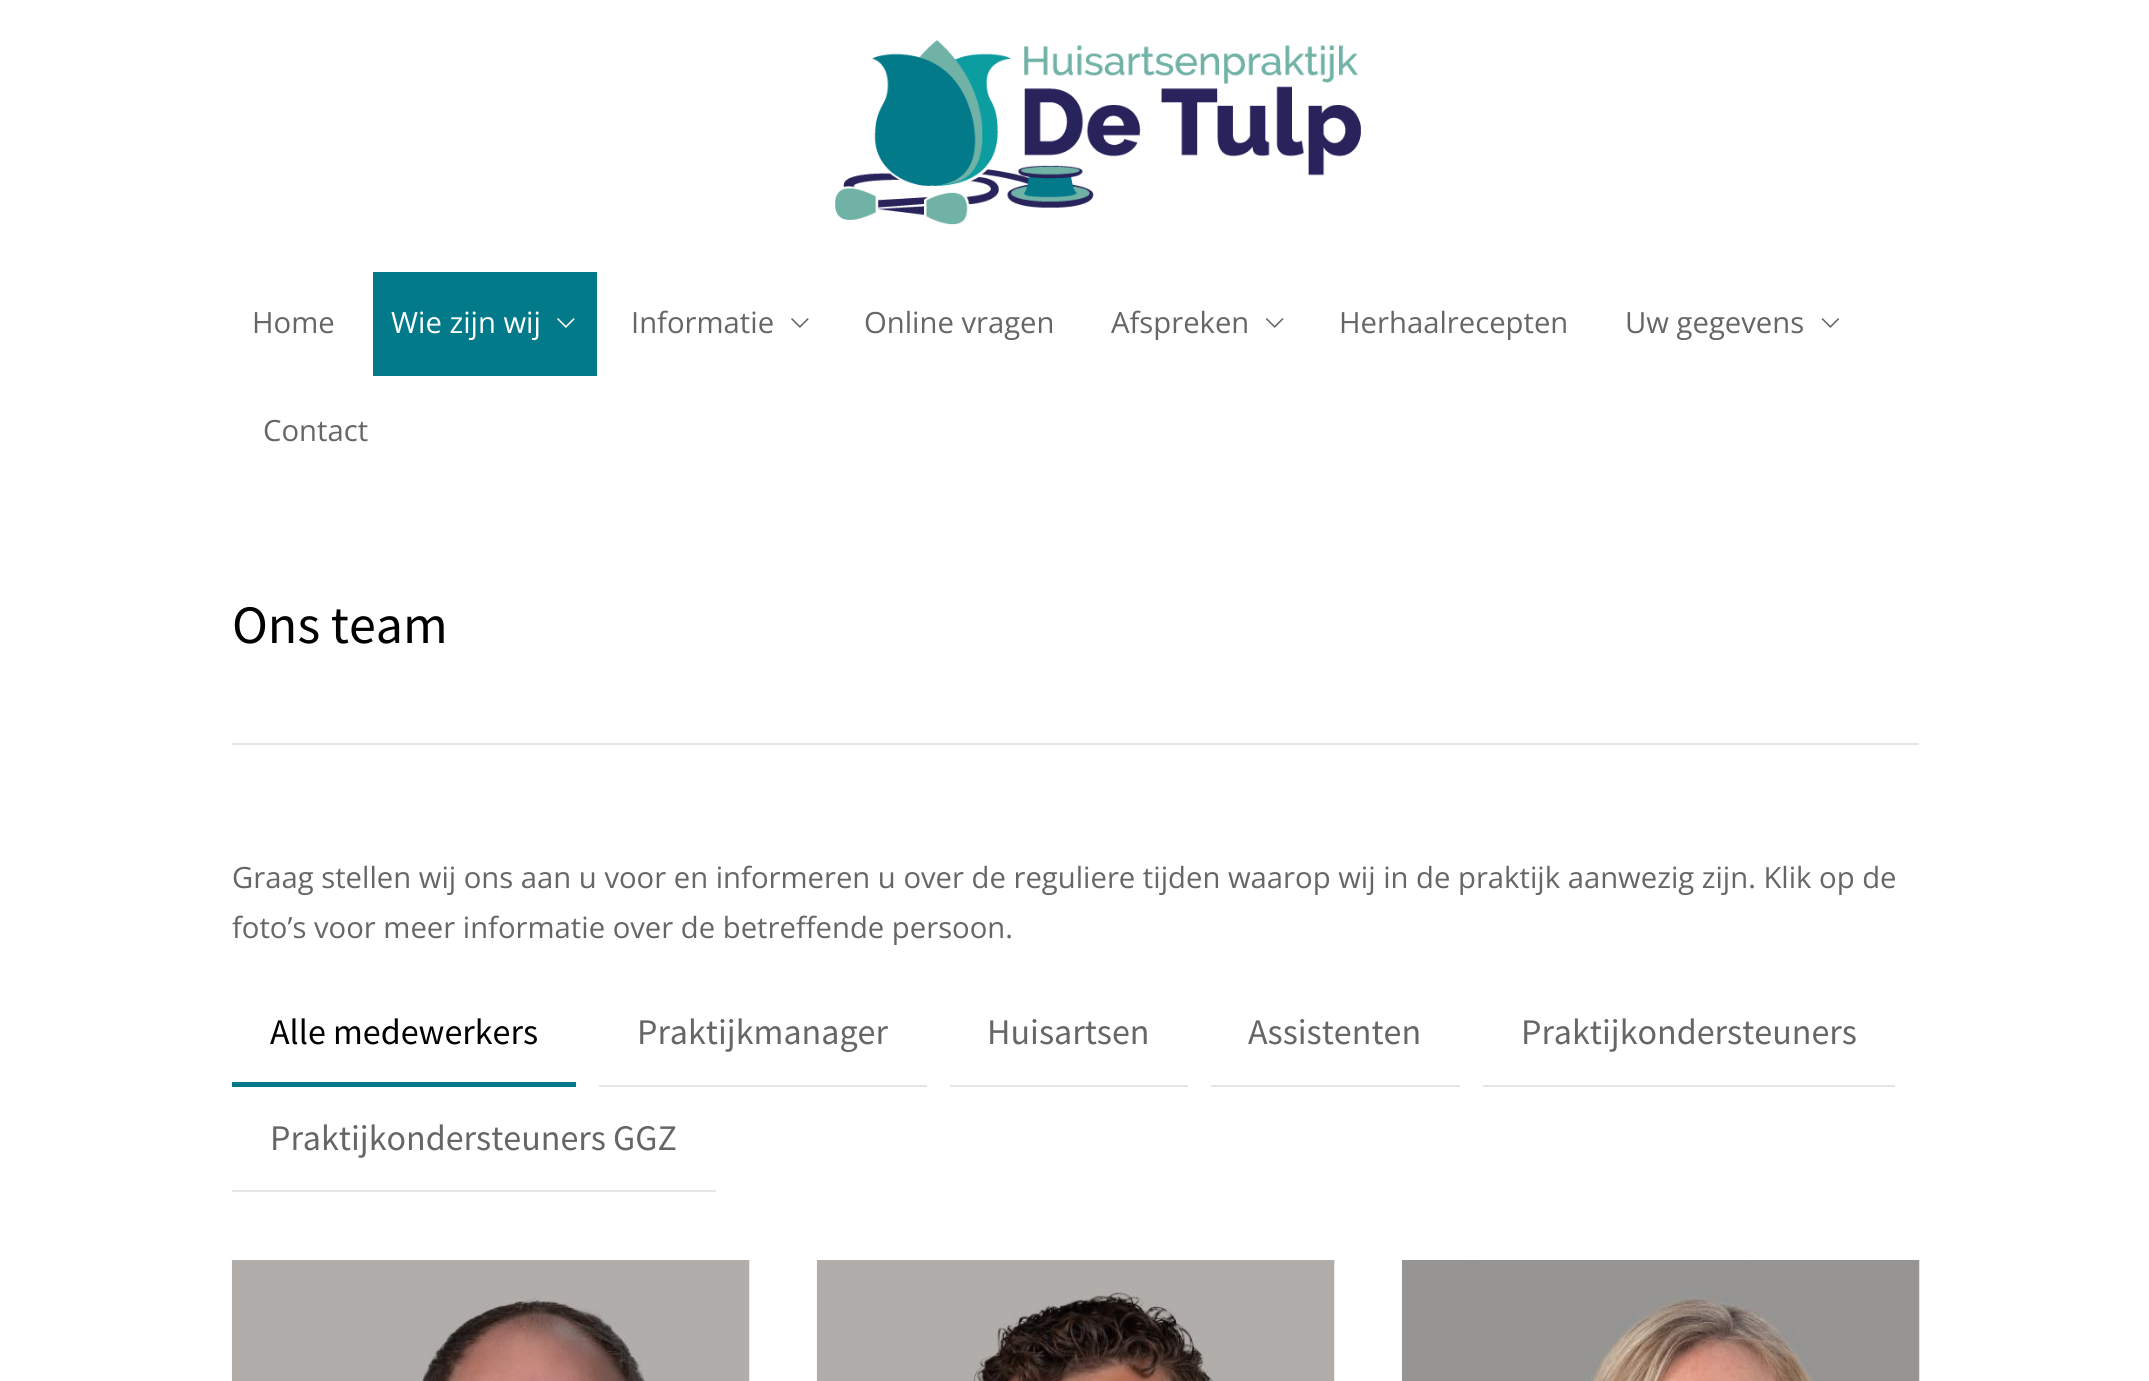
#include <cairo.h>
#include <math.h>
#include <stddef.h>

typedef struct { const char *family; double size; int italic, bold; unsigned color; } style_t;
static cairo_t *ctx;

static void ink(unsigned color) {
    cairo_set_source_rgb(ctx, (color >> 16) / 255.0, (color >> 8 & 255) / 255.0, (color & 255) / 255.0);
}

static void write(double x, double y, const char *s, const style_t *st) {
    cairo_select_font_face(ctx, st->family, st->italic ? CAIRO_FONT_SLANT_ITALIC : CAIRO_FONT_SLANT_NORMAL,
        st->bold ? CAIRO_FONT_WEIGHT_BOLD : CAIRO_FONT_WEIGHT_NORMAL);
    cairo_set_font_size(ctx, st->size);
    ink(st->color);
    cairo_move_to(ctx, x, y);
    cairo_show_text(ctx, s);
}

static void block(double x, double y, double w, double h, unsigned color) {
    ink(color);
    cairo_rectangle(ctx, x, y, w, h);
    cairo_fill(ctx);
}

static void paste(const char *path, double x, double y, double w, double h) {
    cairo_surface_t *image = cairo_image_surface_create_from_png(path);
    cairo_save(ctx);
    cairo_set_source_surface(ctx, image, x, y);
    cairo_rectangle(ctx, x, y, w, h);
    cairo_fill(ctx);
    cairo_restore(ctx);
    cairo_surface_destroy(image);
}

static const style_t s1 = {"Open Sans", 29.25, 0, 0, 0x666666};
static const style_t s2 = {"Open Sans", 29.25, 0, 0, 0xffffff};
static const style_t s3 = {"Source Sans Pro", 54, 0, 0, 0x000000};
static const style_t s4 = {"Source Sans Pro", 36, 0, 0, 0x000000};
static const style_t s5 = {"Source Sans Pro", 36, 0, 0, 0x666666};

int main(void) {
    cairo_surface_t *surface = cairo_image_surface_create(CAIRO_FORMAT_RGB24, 2149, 1381);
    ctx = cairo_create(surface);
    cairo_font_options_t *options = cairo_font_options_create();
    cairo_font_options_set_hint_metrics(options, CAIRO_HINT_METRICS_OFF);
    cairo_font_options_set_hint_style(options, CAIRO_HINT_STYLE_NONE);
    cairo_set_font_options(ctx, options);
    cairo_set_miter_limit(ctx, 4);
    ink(0xffffff);
    cairo_paint(ctx);
    paste("pic1.png", 835, 40, 526, 185);
    write(252, 333, "Home", &s1);
    block(373, 272, 224, 104, 0x027a8a);
    write(391, 333, "Wie zijn wij", &s2);
    paste("pic2.png", 557, 318, 18, 10);
    write(631, 333, "Informatie", &s1);
    paste("pic3.png", 791, 318, 18, 10);
    write(864, 333, "Online vragen", &s1);
    write(1111, 333, "Afspreken", &s1);
    paste("pic4.png", 1265, 318, 19, 10);
    write(1339, 333, "Herhaalrecepten", &s1);
    write(1625, 333, "Uw gegevens", &s1);
    paste("pic5.png", 1821, 318, 19, 10);
    write(263, 441, "Contact", &s1);
    block(232, 743, 1687, 2, 0xe5e5e5);
    write(232, 643, "Ons team", &s3);
    write(232, 888, "Graag stellen wij ons aan u voor en informeren u over de reguliere tijden waarop wij in de praktijk aanwezig zijn. Klik op de", &s1);
    write(232, 938, "foto’s voor meer informatie over de betreffende persoon.", &s1);
    block(232, 1082, 344, 5, 0x027a8a);
    write(270, 1044, "Alle medewerkers", &s4);
    block(599, 1085, 328, 2, 0xe5e5e5);
    write(637, 1044, "Praktijkmanager", &s5);
    block(950, 1085, 238, 2, 0xe5e5e5);
    write(987, 1044, "Huisartsen", &s5);
    block(1211, 1085, 249, 2, 0xe5e5e5);
    write(1248, 1044, "Assistenten", &s5);
    block(1483, 1085, 412, 2, 0xe5e5e5);
    write(1521, 1044, "Praktijkondersteuners", &s5);
    block(232, 1190, 484, 2, 0xe5e5e5);
    write(270, 1150, "Praktijkondersteuners GGZ", &s5);
    paste("pic6.png", 231, 1260, 519, 121);
    paste("pic7.png", 816, 1260, 519, 121);
    paste("pic8.png", 1401, 1260, 519, 121);
    cairo_surface_write_to_png(surface, "screenshot.png");
    cairo_font_options_destroy(options);
    cairo_destroy(ctx);
    cairo_surface_destroy(surface);
    return 0;
}
